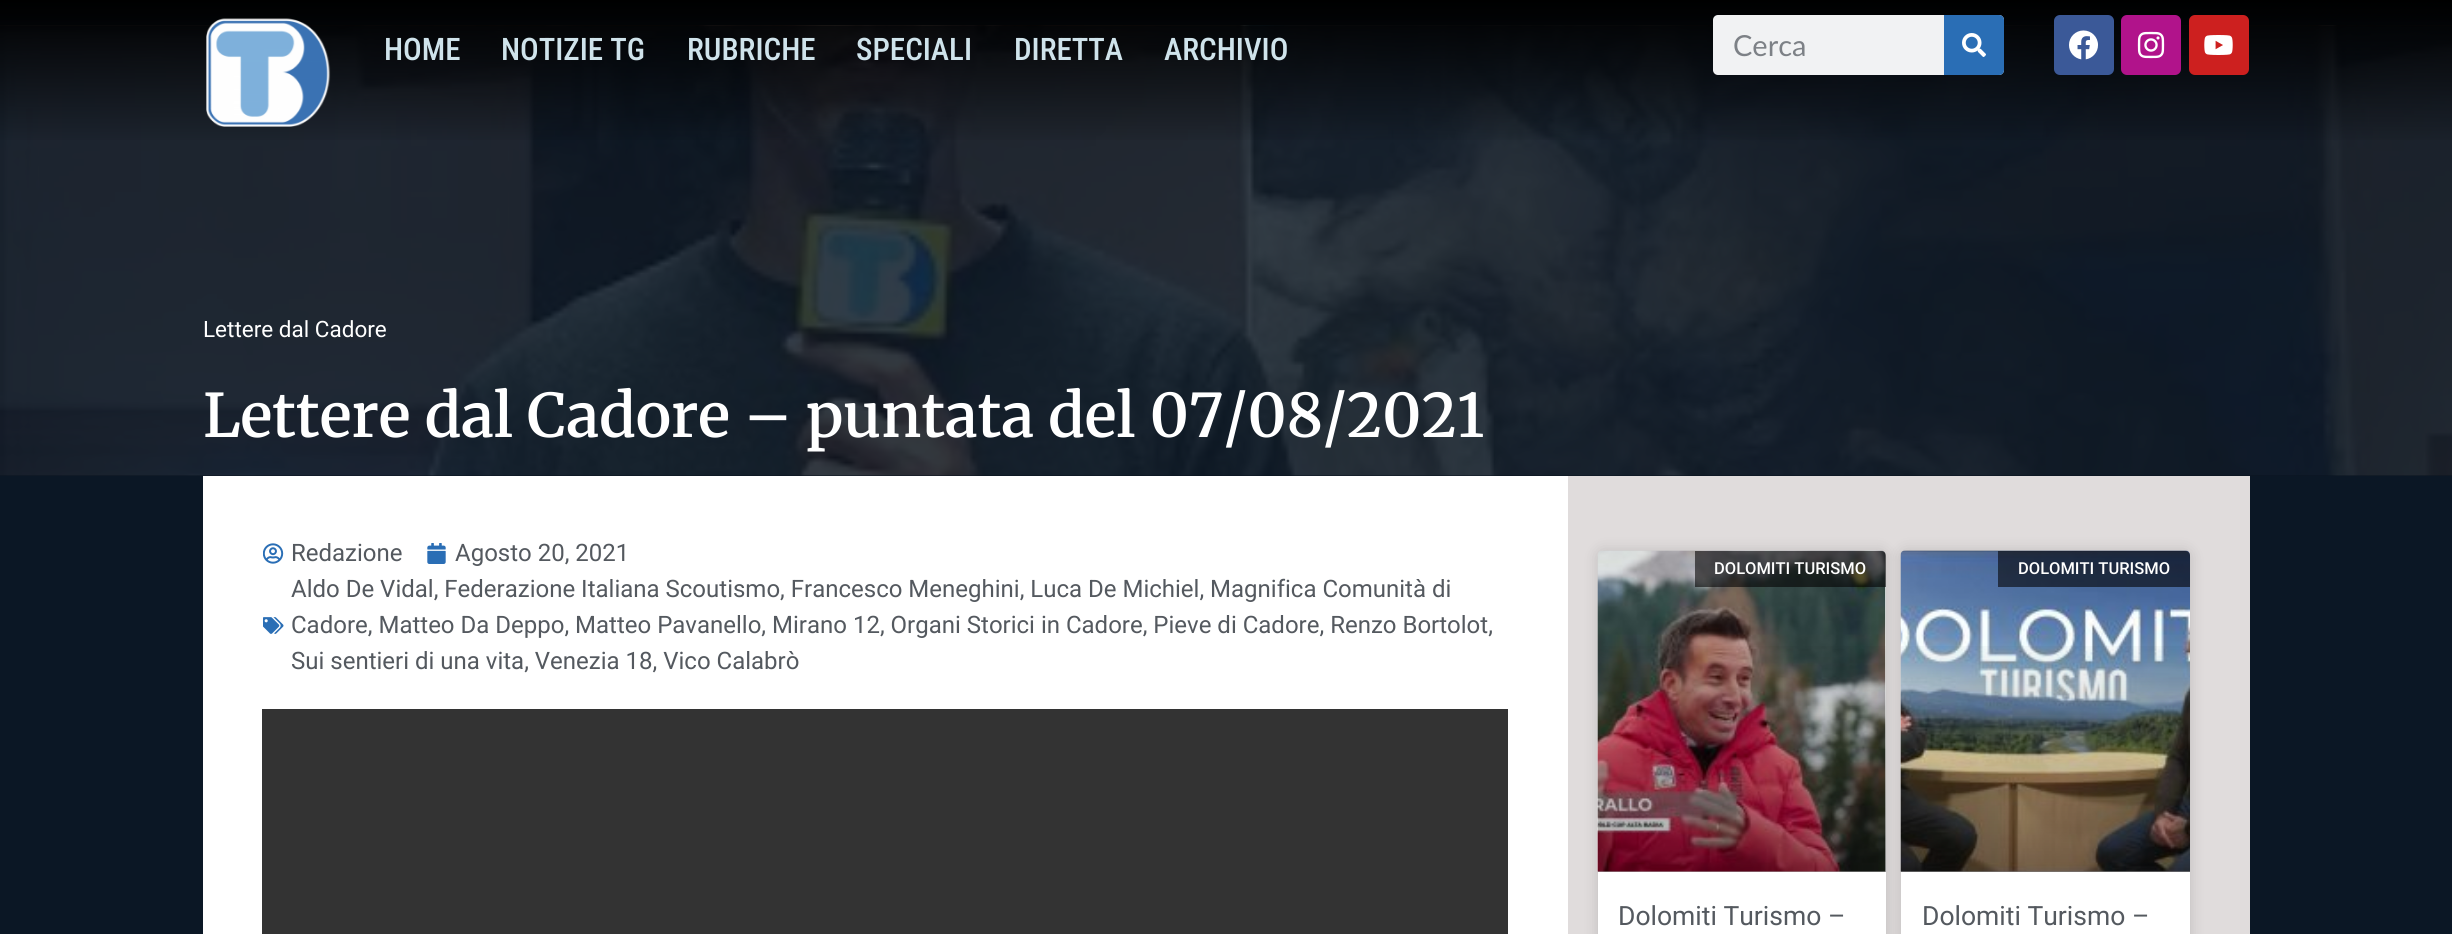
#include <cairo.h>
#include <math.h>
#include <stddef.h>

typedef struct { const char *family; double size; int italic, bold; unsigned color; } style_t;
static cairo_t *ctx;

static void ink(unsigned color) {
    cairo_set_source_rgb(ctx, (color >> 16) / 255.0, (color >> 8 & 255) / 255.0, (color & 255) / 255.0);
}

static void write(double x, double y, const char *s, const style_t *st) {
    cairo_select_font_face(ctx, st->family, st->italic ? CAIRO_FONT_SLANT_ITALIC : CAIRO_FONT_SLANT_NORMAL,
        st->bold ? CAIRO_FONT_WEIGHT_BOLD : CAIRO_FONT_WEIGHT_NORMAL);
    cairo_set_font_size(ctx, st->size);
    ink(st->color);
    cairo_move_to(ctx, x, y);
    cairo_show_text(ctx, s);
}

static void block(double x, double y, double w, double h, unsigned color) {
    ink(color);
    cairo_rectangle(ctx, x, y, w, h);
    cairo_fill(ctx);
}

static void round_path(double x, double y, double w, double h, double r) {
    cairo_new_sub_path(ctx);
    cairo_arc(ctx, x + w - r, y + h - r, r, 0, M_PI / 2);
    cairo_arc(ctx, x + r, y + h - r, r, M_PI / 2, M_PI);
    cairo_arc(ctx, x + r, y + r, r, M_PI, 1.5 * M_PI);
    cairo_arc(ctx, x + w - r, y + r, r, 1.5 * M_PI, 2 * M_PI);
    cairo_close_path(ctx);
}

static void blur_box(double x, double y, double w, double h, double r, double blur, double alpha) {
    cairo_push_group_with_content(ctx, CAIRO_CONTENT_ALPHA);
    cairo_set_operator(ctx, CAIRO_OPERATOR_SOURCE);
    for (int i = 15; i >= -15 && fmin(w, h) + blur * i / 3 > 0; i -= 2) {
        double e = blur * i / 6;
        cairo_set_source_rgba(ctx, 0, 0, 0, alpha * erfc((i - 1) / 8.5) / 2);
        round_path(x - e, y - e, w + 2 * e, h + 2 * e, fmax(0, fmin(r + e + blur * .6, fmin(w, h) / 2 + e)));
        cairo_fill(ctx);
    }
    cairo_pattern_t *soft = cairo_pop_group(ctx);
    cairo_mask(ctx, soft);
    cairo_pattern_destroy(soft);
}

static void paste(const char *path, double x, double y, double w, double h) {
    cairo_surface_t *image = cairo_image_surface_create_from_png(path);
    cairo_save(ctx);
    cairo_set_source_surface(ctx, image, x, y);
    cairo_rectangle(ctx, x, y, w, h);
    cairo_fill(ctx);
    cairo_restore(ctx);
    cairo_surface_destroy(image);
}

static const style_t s1 = {"Roboto Condensed Medium", 31, 0, 0, 0xcfe3eb};
static const style_t s2 = {"Lato", 29, 0, 0, 0x7d8186};
static const style_t s3 = {"Roboto", 22.5, 0, 0, 0xffffff};
static const style_t s4 = {"Merriweather SemiBold", 60, 0, 0, 0xffffff};
static const style_t s5 = {"Roboto", 24, 0, 0, 0x54595f};
static const style_t s6 = {"Roboto Medium", 16.5, 0, 0, 0xffffff};
static const style_t s7 = {"Roboto", 26.5, 0, 0, 0x54595f};

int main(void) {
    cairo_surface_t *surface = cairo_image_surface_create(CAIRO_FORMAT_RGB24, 2452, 934);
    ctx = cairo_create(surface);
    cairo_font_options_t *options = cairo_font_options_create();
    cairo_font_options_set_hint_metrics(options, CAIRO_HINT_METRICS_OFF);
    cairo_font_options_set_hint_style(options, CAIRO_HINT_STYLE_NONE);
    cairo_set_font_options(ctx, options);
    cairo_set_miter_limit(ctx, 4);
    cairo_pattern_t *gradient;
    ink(0x0b1725);
    cairo_paint(ctx);
    block(0, 475, 2452, 1, 0x09131f);
    paste("pic6.png", 0, 25, 2452, 451);
    gradient = cairo_pattern_create_linear(1226, 0, 1226, 146);
    cairo_pattern_add_color_stop_rgba(gradient, 0, 0, 0, 0, 1);
    cairo_pattern_add_color_stop_rgba(gradient, 1, 0, 0, 0, 0);
    cairo_set_source(ctx, gradient);
    cairo_pattern_destroy(gradient);
    cairo_rectangle(ctx, 0, 0, 2452, 140);
    cairo_fill(ctx);
    paste("pic1.png", 206, 18, 125, 109);
    write(384, 60, "HOME", &s1);
    write(501, 60, "NOTIZIE TG", &s1);
    write(687, 60, "RUBRICHE", &s1);
    write(856, 60, "SPECIALI", &s1);
    write(1014, 60, "DIRETTA", &s1);
    write(1164, 60, "ARCHIVIO", &s1);
    ink(0xf1f2f3);
    round_path(1713, 15, 291, 60, 5);
    cairo_fill(ctx);
    write(1733, 56, "Cerca", &s2);
    ink(0x2a6eb5);
    cairo_new_path(ctx);
    cairo_move_to(ctx, 1944, 15);
    cairo_line_to(ctx, 1999, 15);
    cairo_curve_to(ctx, 2002, 15, 2004, 17, 2004, 20);
    cairo_line_to(ctx, 2004, 70);
    cairo_curve_to(ctx, 2004, 73, 2002, 75, 1999, 75);
    cairo_line_to(ctx, 1944, 75);
    cairo_close_path(ctx);
    cairo_fill(ctx);
    paste("pic2.png", 1962, 33, 24, 24);
    ink(0x3b5998);
    round_path(2054, 15, 60, 60, 6);
    cairo_fill(ctx);
    paste("pic3.png", 2069, 30, 29, 30);
    ink(0xb1138b);
    round_path(2121, 15, 60, 60, 6);
    cairo_fill(ctx);
    paste("pic4.png", 2137, 31, 28, 28);
    ink(0xcd201f);
    round_path(2189, 15, 60, 60, 6);
    cairo_fill(ctx);
    paste("pic5.png", 2204, 35, 29, 20);
    write(203, 337, "Lettere dal Cadore", &s3);
    write(203, 437, "Lettere dal Cadore – puntata del 07/08/2021", &s4);
    block(203, 476, 1365, 458, 0xffffff);
    paste("pic7.png", 263, 543, 21, 21);
    write(291, 561, "Redazione", &s5);
    paste("pic8.png", 427, 543, 19, 21);
    write(455, 561, "Agosto 20, 2021", &s5);
    paste("pic9.png", 263, 617, 21, 17);
    write(291, 597, "Aldo De Vidal, Federazione Italiana Scoutismo, Francesco Meneghini, Luca De Michiel, Magnifica Comunità di", &s5);
    write(291, 633, "Cadore, Matteo Da Deppo, Matteo Pavanello, Mirano 12, Organi Storici in Cadore, Pieve di Cadore, Renzo Bortolot,", &s5);
    write(291, 669, "Sui sentieri di una vita, Venezia 18, Vico Calabrò", &s5);
    block(262, 709, 1246, 225, 0x333333);
    block(1568, 476, 682, 458, 0xe0dcdc);
    ink(0x000000);
    blur_box(1598, 551, 288, 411, 5, 7.5, 0.15);
    ink(0xffffff);
    round_path(1598, 551, 288, 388, 5);
    cairo_fill(ctx);
    paste("pic10.png", 1597, 550, 289, 322);
    gradient = cairo_pattern_create_linear(1742, 872, 1742, 551);
    cairo_pattern_add_color_stop_rgba(gradient, 0, 0, 0, 0, 0.35);
    cairo_pattern_add_color_stop_rgba(gradient, 0.75, 0, 0, 0, 0);
    cairo_set_source(ctx, gradient);
    cairo_pattern_destroy(gradient);
    cairo_rectangle(ctx, 1598, 646, 288, 226);
    cairo_fill(ctx);
    cairo_set_source_rgba(ctx, 0.008, 0.004, 0.004, 0.58);
    cairo_new_path(ctx);
    cairo_move_to(ctx, 1695, 551);
    cairo_line_to(ctx, 1881, 551);
    cairo_curve_to(ctx, 1884, 551, 1886, 553, 1886, 556);
    cairo_line_to(ctx, 1886, 587);
    cairo_line_to(ctx, 1695, 587);
    cairo_close_path(ctx);
    cairo_fill(ctx);
    write(1714, 574, "DOLOMITI TURISMO", &s6);
    write(1618, 925, "Dolomiti Turismo –", &s7);
    ink(0x000000);
    blur_box(1901, 551, 289, 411, 5, 7.5, 0.15);
    ink(0xffffff);
    round_path(1901, 551, 289, 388, 5);
    cairo_fill(ctx);
    paste("pic11.png", 1900, 550, 290, 322);
    gradient = cairo_pattern_create_linear(2045, 872, 2045, 551);
    cairo_pattern_add_color_stop_rgba(gradient, 0, 0, 0, 0, 0.35);
    cairo_pattern_add_color_stop_rgba(gradient, 0.75, 0, 0, 0, 0);
    cairo_set_source(ctx, gradient);
    cairo_pattern_destroy(gradient);
    cairo_rectangle(ctx, 1901, 646, 289, 226);
    cairo_fill(ctx);
    cairo_set_source_rgba(ctx, 0.008, 0.004, 0.004, 0.58);
    cairo_new_path(ctx);
    cairo_move_to(ctx, 1998, 551);
    cairo_line_to(ctx, 2185, 551);
    cairo_curve_to(ctx, 2188, 551, 2190, 553, 2190, 556);
    cairo_line_to(ctx, 2190, 587);
    cairo_line_to(ctx, 1998, 587);
    cairo_close_path(ctx);
    cairo_fill(ctx);
    write(2018, 574, "DOLOMITI TURISMO", &s6);
    write(1922, 925, "Dolomiti Turismo –", &s7);
    cairo_surface_write_to_png(surface, "screenshot.png");
    cairo_font_options_destroy(options);
    cairo_destroy(ctx);
    cairo_surface_destroy(surface);
    return 0;
}
